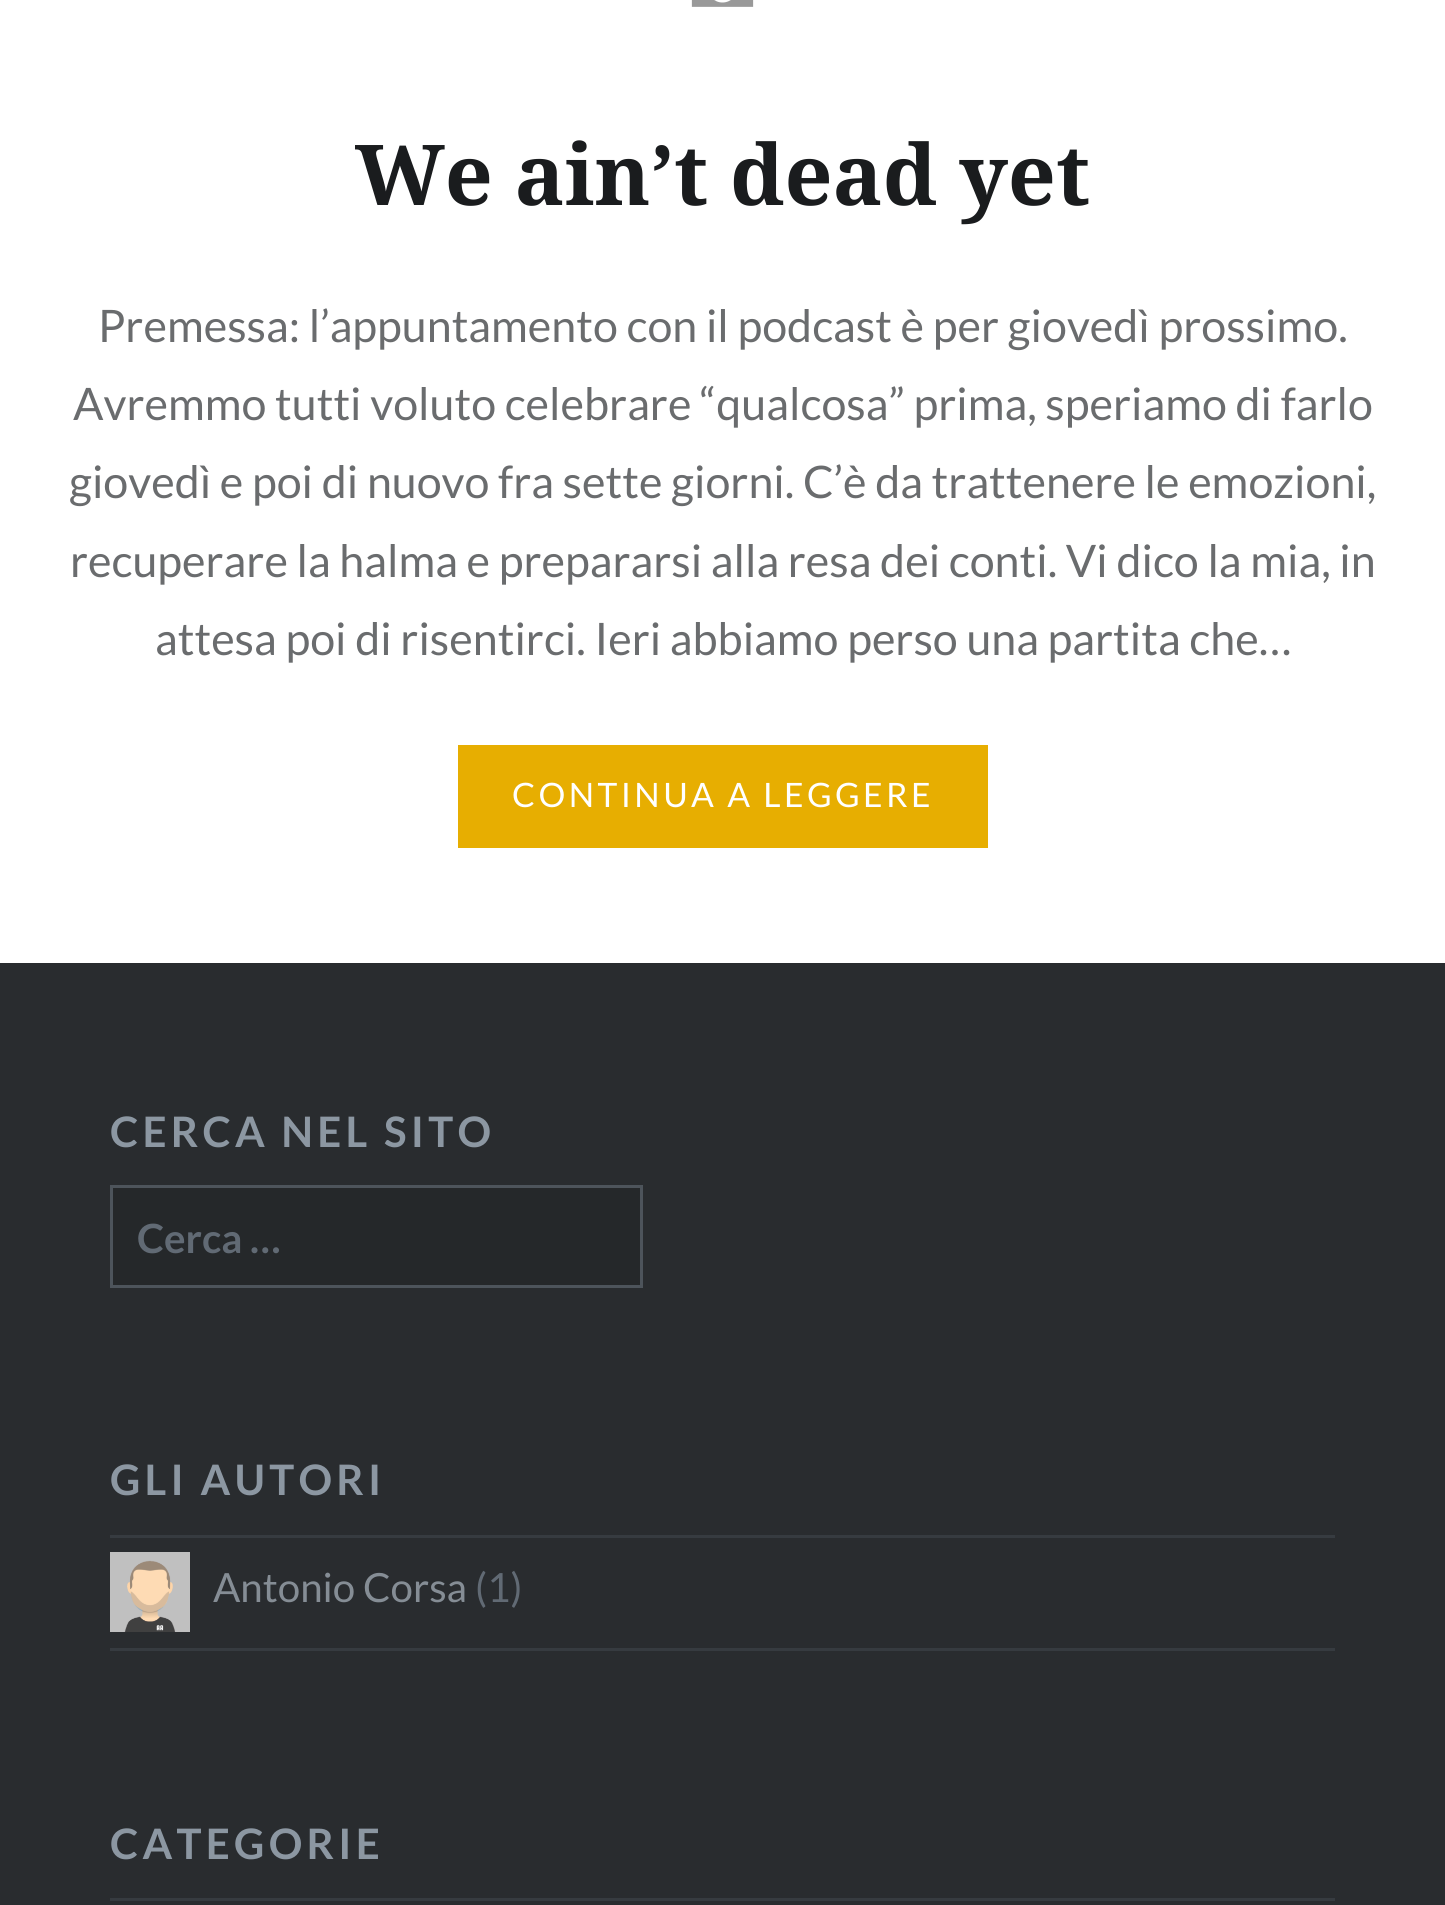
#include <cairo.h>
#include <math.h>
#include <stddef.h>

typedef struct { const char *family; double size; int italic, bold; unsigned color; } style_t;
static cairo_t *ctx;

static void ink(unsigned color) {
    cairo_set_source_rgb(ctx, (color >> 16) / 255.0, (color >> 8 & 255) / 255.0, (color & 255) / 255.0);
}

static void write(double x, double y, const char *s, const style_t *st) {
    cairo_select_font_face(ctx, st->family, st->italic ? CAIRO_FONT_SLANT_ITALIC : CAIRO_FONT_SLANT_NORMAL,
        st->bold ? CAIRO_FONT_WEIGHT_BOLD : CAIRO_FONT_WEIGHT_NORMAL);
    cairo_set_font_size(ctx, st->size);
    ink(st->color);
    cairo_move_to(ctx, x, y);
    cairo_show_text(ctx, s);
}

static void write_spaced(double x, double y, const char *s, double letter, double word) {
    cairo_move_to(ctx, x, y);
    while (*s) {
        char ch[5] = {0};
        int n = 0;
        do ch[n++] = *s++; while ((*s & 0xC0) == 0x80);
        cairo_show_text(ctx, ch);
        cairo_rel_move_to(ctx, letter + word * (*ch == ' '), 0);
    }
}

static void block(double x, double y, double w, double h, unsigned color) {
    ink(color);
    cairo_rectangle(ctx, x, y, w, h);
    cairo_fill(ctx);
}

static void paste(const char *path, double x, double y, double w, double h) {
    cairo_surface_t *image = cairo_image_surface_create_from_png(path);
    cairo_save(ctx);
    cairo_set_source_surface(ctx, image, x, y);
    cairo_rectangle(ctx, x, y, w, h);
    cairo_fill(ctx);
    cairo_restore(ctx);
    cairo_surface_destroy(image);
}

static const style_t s1 = {"Noto Serif", 84, 0, 1, 0x1a1c1e};
static const style_t s2 = {"Lato", 44.8, 0, 0, 0x6a6c6e};
static const style_t s3 = {"Lato", 40.25, 0, 1, 0x616a74};
static const style_t s4 = {"Lato", 40.25, 0, 0, 0x858d95};
static const style_t s5 = {"Lato", 40.25, 0, 0, 0x616a74};

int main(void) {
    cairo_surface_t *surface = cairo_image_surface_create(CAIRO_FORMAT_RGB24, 1445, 1905);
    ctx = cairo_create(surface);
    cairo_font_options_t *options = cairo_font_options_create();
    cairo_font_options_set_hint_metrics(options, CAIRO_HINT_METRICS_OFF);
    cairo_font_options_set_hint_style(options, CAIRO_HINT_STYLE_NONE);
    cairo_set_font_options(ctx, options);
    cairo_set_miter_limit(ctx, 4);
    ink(0xffffff);
    cairo_paint(ctx);
    paste("pic1.png", 691, 0, 63, 7);
    write(355, 205, "We ain’t dead yet", &s1);
    write(98, 342, "Premessa: l’appuntamento con il podcast è per giovedì prossimo.", &s2);
    write(73, 420, "Avremmo tutti voluto celebrare “qualcosa” prima, speriamo di farlo", &s2);
    write(69, 498, "giovedì e poi di nuovo fra sette giorni. C’è da trattenere le emozioni,", &s2);
    write(70, 577, "recuperare la halma e prepararsi alla resa dei conti. Vi dico la mia, in", &s2);
    write(155, 655, "attesa poi di risentirci. Ieri abbiamo perso una partita che…", &s2);
    block(458, 745, 530, 103, 0xe7ae01);
    cairo_set_font_size(ctx, 33.6);
    ink(0xffffff);
    write_spaced(512, 807, "CONTINUA A LEGGERE", 3.4, 0);
    block(0, 963, 1445, 942, 0x292c2f);
    cairo_select_font_face(ctx, "Lato", CAIRO_FONT_SLANT_NORMAL, CAIRO_FONT_WEIGHT_BOLD);
    cairo_set_font_size(ctx, 42);
    ink(0x8c97a2);
    write_spaced(110, 1147, "CERCA NEL SITO", 4.25, 0);
    ink(0x25282a);
    cairo_rectangle(ctx, 111.5, 1186.5, 530, 100);
    cairo_fill_preserve(ctx);
    ink(0x4d545b);
    cairo_set_line_width(ctx, 3);
    cairo_stroke(ctx);
    write(137, 1253, "Cerca …", &s3);
    cairo_set_font_size(ctx, 42);
    ink(0x8c97a2);
    write_spaced(110, 1495, "GLI AUTORI", 4.25, 0);
    block(110, 1535, 1225, 3, 0x363b40);
    block(110, 1648, 1225, 3, 0x363b40);
    paste("pic2.png", 110, 1552, 80, 80);
    write(213, 1602, "Antonio Corsa", &s4);
    write(475, 1602, "(1)", &s5);
    cairo_select_font_face(ctx, "Lato", CAIRO_FONT_SLANT_NORMAL, CAIRO_FONT_WEIGHT_BOLD);
    cairo_set_font_size(ctx, 42);
    ink(0x8c97a2);
    write_spaced(110, 1859, "CATEGORIE", 4.25, 0);
    block(110, 1898, 1225, 3, 0x363b40);
    cairo_surface_write_to_png(surface, "screenshot.png");
    cairo_font_options_destroy(options);
    cairo_destroy(ctx);
    cairo_surface_destroy(surface);
    return 0;
}
